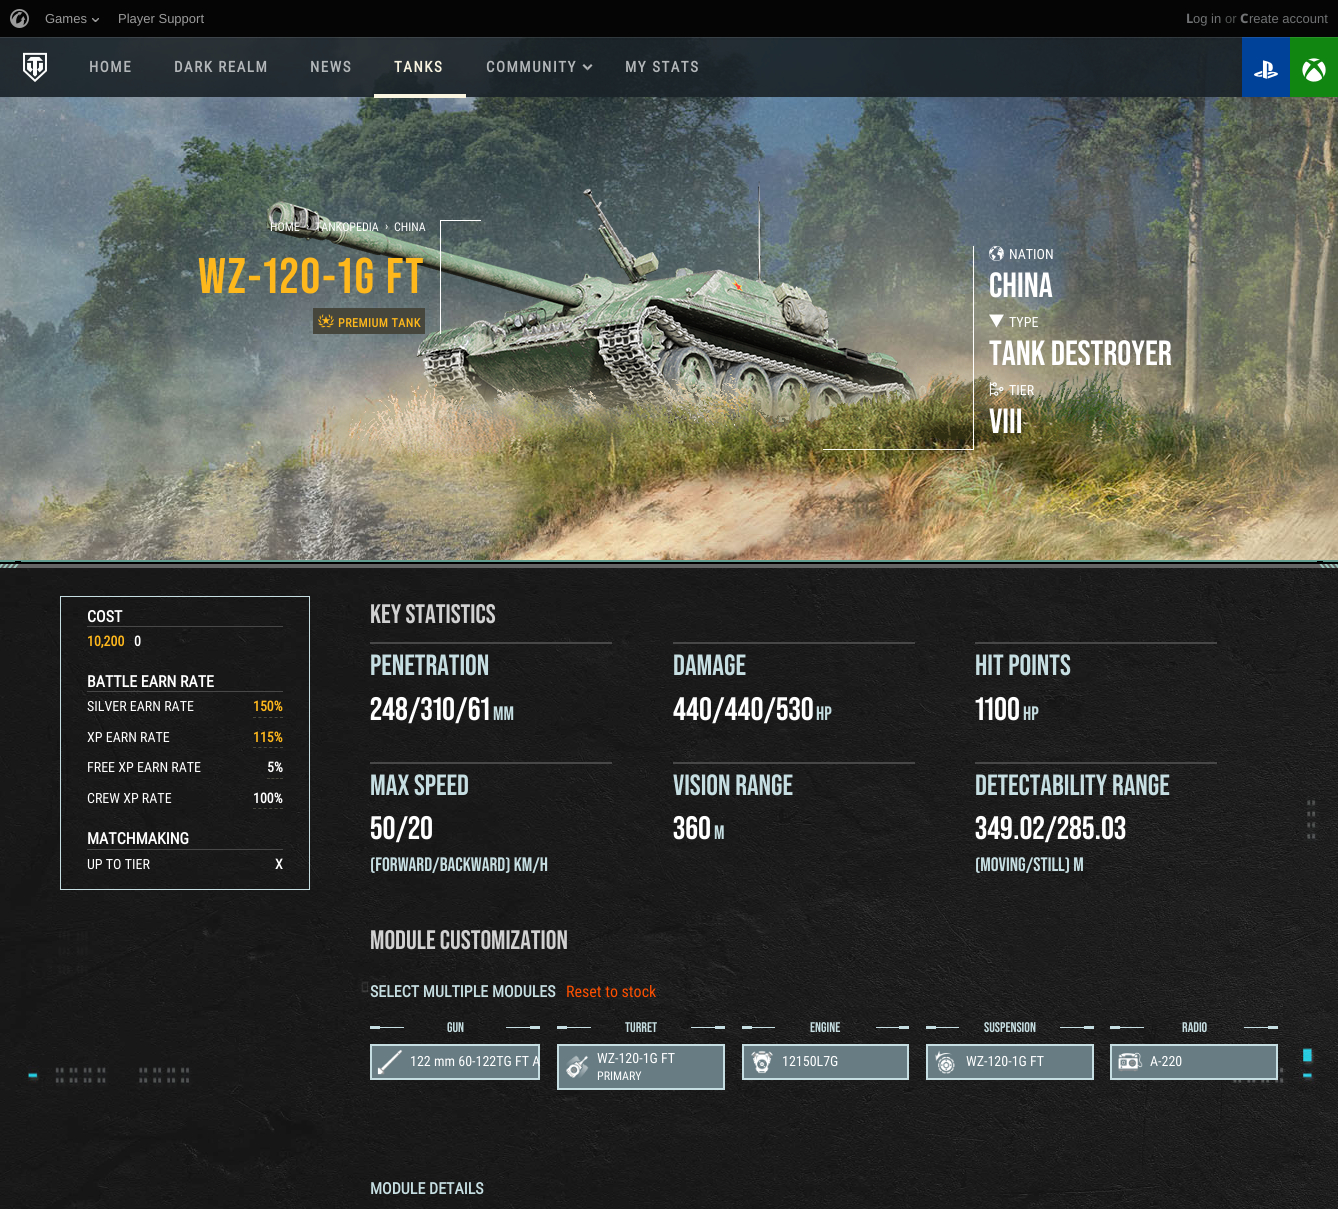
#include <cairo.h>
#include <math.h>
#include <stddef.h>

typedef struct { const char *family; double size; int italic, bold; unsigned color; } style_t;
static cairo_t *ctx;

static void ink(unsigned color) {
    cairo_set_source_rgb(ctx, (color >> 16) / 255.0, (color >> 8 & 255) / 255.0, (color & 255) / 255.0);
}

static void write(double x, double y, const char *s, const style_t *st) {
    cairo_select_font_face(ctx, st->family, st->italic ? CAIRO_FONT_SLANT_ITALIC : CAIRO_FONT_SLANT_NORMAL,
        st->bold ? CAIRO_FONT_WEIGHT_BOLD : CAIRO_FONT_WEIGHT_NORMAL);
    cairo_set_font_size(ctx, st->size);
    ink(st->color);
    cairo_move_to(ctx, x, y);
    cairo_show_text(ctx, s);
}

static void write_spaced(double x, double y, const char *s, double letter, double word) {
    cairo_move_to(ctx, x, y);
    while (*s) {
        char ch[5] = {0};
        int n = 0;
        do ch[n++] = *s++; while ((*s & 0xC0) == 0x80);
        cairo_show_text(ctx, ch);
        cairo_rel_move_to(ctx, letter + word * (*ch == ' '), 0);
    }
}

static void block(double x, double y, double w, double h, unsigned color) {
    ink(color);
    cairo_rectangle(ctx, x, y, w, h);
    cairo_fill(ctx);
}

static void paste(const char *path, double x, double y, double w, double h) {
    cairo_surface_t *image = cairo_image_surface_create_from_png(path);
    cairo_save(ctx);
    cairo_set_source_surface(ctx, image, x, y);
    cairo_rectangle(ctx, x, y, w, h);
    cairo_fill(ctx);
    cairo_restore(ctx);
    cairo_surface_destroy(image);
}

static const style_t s1 = {"Liberation Sans", 13, 0, 0, 0x9b9b9b};
static const style_t s2 = {"Noto Sans", 13, 0, 1, 0x707273};
static const style_t s3 = {"Liberation Sans", 13, 0, 0, 0x707273};
static const style_t s4 = {"Liberation Sans", 13, 0, 0, 0x525454};
static const style_t s5 = {"Noto Sans ExtraBold", 13, 0, 0, 0x707273};
static const style_t s6 = {"Roboto Condensed", 12, 0, 0, 0xffffff};
static const style_t s7 = {"Roboto Condensed", 14, 0, 0, 0xffffff};
static const style_t s8 = {"Bebas Neue", 35, 0, 1, 0xffffff};
static const style_t s9 = {"Roboto Condensed", 16, 0, 1, 0xffffff};
static const style_t s10 = {"Roboto Condensed", 14, 0, 1, 0xffb81c};
static const style_t s11 = {"Roboto Condensed", 14, 0, 1, 0xffffff};
static const style_t s12 = {"Bebas Neue", 26.75, 0, 1, 0xd1d1d1};
static const style_t s13 = {"Bebas Neue", 29.25, 0, 1, 0xc6dee1};
static const style_t s14 = {"Bebas Neue", 32.5, 0, 1, 0xffffff};
static const style_t s15 = {"Bebas Neue", 19.5, 0, 1, 0xc6dee1};
static const style_t s16 = {"Roboto Condensed", 16, 0, 1, 0xc6dee1};
static const style_t s17 = {"Roboto Condensed", 16, 0, 0, 0xfe5000};
static const style_t s18 = {"Bebas Neue", 14, 0, 1, 0xc6dee1};

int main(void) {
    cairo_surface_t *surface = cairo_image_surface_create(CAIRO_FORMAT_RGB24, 1338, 1209);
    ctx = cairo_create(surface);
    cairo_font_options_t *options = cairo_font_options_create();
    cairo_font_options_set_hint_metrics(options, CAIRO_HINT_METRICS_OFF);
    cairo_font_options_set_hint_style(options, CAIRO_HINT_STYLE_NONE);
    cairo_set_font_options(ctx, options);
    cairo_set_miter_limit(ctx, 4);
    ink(0xffffff);
    cairo_paint(ctx);
    block(0, 0, 1338, 37, 0x050505);
    paste("pic7.png", 0, 37, 1338, 523);
    cairo_set_source_rgba(ctx, 0.106, 0.137, 0.161, 0.92);
    cairo_rectangle(ctx, 0, 37, 1242, 60);
    cairo_fill(ctx);
    block(1242, 37, 48, 60, 0x004199);
    block(1290, 37, 48, 60, 0x118711);
    cairo_rectangle(ctx, -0.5, -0.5, 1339, 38);
    cairo_set_source_rgba(ctx, 1, 1, 1, 0.1);
    cairo_set_line_width(ctx, 1);
    cairo_stroke(ctx);
    paste("pic1.png", 10, 9, 19, 19);
    write(45, 23, "Games", &s1);
    paste("pic2.png", 92, 18, 7, 4);
    write(118, 23, "Player Support", &s1);
    write(1186, 23, "L", &s2);
    write(1193, 23, "og in", &s3);
    write(1225, 23, "or", &s4);
    write(1240, 23, "C", &s5);
    write(1249, 23, "reate account", &s3);
    paste("pic3.png", 1254, 60, 24, 19);
    paste("pic4.png", 1302, 58, 24, 24);
    paste("pic5.png", 23, 52, 24, 30);
    cairo_select_font_face(ctx, "Roboto Condensed", CAIRO_FONT_SLANT_NORMAL, CAIRO_FONT_WEIGHT_BOLD);
    cairo_set_font_size(ctx, 15);
    ink(0xb4b7b9);
    write_spaced(89, 72, "HOME", 1.5, 0);
    write_spaced(174, 72, "DARK REALM", 1.5, 0);
    write_spaced(310, 72, "NEWS", 1.5, 0);
    ink(0xf9f5e1);
    write_spaced(394, 72, "TANKS", 1.5, 0);
    block(374, 94, 92, 4, 0xf9f5e1);
    ink(0xb4b7b9);
    write_spaced(486, 72, "COMMUNITY", 1.5, 0);
    ink(0xb2b4b6);
    cairo_new_path(ctx);
    cairo_move_to(ctx, 592.5, 65.5);
    cairo_line_to(ctx, 587.5, 70.5);
    cairo_line_to(ctx, 587.5, 67.5);
    cairo_line_to(ctx, 591, 64);
    cairo_close_path(ctx);
    cairo_fill(ctx);
    cairo_set_source_rgba(ctx, 0.949, 0.949, 0.949, 0.7);
    cairo_new_path(ctx);
    cairo_move_to(ctx, 587.5, 70.5);
    cairo_line_to(ctx, 582.5, 65.5);
    cairo_line_to(ctx, 584, 64);
    cairo_line_to(ctx, 587.5, 67.5);
    cairo_close_path(ctx);
    cairo_fill(ctx);
    ink(0xb4b7b9);
    write_spaced(625, 72, "MY STATS", 1.5, 0);
    paste("pic6.png", 0, 568, 1338, 641);
    paste("pic8.png", 266, 181, 661, 245);
    block(440, 220, 1, 114, 0xffffff);
    write(270, 231, "HOME", &s6);
    write(306, 230, "›", &s6);
    write(315, 231, "TANKOPEDIA", &s6);
    write(385, 230, "›", &s6);
    write(394, 231, "CHINA", &s6);
    cairo_select_font_face(ctx, "Bebas Neue", CAIRO_FONT_SLANT_NORMAL, CAIRO_FONT_WEIGHT_BOLD);
    cairo_set_font_size(ctx, 50);
    ink(0xffb81c);
    write_spaced(198, 293, "WZ-120-1G FT", 2, 0);
    block(313, 308, 112, 26, 0x46463c);
    paste("pic9.png", 318, 314, 16, 14);
    cairo_select_font_face(ctx, "Roboto Condensed", CAIRO_FONT_SLANT_NORMAL, CAIRO_FONT_WEIGHT_BOLD);
    cairo_set_font_size(ctx, 12);
    ink(0xffb81c);
    write_spaced(338, 327, "PREMIUM TANK", 0.5, 0);
    block(441, 220, 40, 1, 0xffffff);
    paste("pic12.png", 316, 355, 819, 103);
    paste("pic13.png", 348, 370, 794, 90);
    block(823, 449, 150, 1, 0xffffff);
    block(973, 246, 1, 204, 0xffffff);
    paste("pic10.png", 989, 246, 15, 15);
    write(1009, 259, "NATION", &s7);
    write(989, 297, "CHINA", &s8);
    cairo_new_path(ctx);
    cairo_move_to(ctx, 989, 314.5);
    cairo_line_to(ctx, 996.5, 327.5);
    cairo_line_to(ctx, 1004, 314.5);
    cairo_close_path(ctx);
    cairo_fill(ctx);
    write(1009, 327, "TYPE", &s7);
    write(989, 365, "TANK DESTROYER", &s8);
    paste("pic11.png", 989, 382, 15, 14);
    write(1009, 395, "TIER", &s7);
    write(989, 433, "VIII", &s8);
    paste("pic14.png", 0, 560, 24, 8);
    paste("pic15.png", 24, 560, 1290, 8);
    paste("pic16.png", 1314, 560, 24, 8);
    cairo_rectangle(ctx, 60.5, 596.5, 249, 293);
    ink(0xc6dee1);
    cairo_stroke(ctx);
    block(87, 626, 196, 1, 0x484848);
    write(87, 622, "COST", &s9);
    write(87, 646, "10,200", &s10);
    write(134, 646, "0", &s11);
    block(87, 691, 196, 1, 0x484848);
    write(87, 687, "BATTLE EARN RATE", &s9);
    write(87, 711, "SILVER EARN RATE", &s7);
    cairo_new_path(ctx);
    cairo_move_to(ctx, 253, 717.5);
    cairo_line_to(ctx, 283, 717.5);
    ink(0x46463c);
    cairo_set_dash(ctx, (double[]){3, 2.4}, 2, 0);
    cairo_stroke(ctx);
    write(253, 711, "150%", &s10);
    write(87, 742, "XP EARN RATE", &s7);
    cairo_new_path(ctx);
    cairo_move_to(ctx, 253, 747.5);
    cairo_line_to(ctx, 283, 747.5);
    ink(0x46463c);
    cairo_stroke(ctx);
    write(253, 742, "115%", &s10);
    write(87, 772, "FREE XP EARN RATE", &s7);
    cairo_new_path(ctx);
    cairo_move_to(ctx, 267, 778.5);
    cairo_line_to(ctx, 283, 778.5);
    ink(0x46463c);
    cairo_set_dash(ctx, (double[]){3, 1.33}, 2, 0);
    cairo_stroke(ctx);
    write(267, 772, "5%", &s11);
    write(87, 803, "CREW XP RATE", &s7);
    cairo_new_path(ctx);
    cairo_move_to(ctx, 253, 808.5);
    cairo_line_to(ctx, 283, 808.5);
    ink(0x46463c);
    cairo_set_dash(ctx, (double[]){3, 2.4}, 2, 0);
    cairo_stroke(ctx);
    write(253, 803, "100%", &s11);
    block(87, 849, 196, 1, 0x484848);
    write(87, 844, "MATCHMAKING", &s9);
    write(87, 869, "UP TO TIER", &s7);
    write(275, 869, "X", &s11);
    write(370, 623, "KEY STATISTICS", &s12);
    block(370, 642, 242, 2, 0x484848);
    write(370, 675, "PENETRATION", &s13);
    write(370, 720, "248/310/61", &s14);
    write(493, 720, "MM", &s15);
    block(673, 642, 242, 2, 0x484848);
    write(673, 675, "DAMAGE", &s13);
    write(673, 720, "440/440/530", &s14);
    write(816, 720, "HP", &s15);
    block(975, 642, 242, 2, 0x484848);
    write(975, 675, "HIT POINTS", &s13);
    write(975, 720, "1100", &s14);
    write(1023, 720, "HP", &s15);
    block(370, 762, 242, 2, 0x484848);
    write(370, 795, "MAX SPEED", &s13);
    write(370, 839, "50/20", &s14);
    write(370, 871, "(FORWARD/BACKWARD) KM/H", &s15);
    block(673, 762, 242, 2, 0x484848);
    write(673, 795, "VISION RANGE", &s13);
    write(673, 839, "360", &s14);
    write(714, 839, "M", &s15);
    block(975, 762, 242, 2, 0x484848);
    write(975, 795, "DETECTABILITY RANGE", &s13);
    write(975, 839, "349.02/285.03", &s14);
    write(975, 871, "(MOVING/STILL) M", &s15);
    write(370, 949, "MODULE CUSTOMIZATION", &s12);
    write(370, 997, "SELECT MULTIPLE MODULES", &s16);
    write(566, 997, "Reset to stock", &s17);
    block(380, 1027, 24, 1, 0xc6dee1);
    block(370, 1026, 10, 3, 0xc6dee1);
    write(447, 1032, "GUN", &s18);
    block(530, 1026, 10, 3, 0xc6dee1);
    block(506, 1027, 24, 1, 0xc6dee1);
    ink(0x677c83);
    cairo_rectangle(ctx, 371, 1045, 168, 34);
    cairo_fill_preserve(ctx);
    ink(0xc6dee1);
    cairo_set_line_width(ctx, 2);
    cairo_set_dash(ctx, NULL, 0, 0);
    cairo_stroke(ctx);
    paste("pic17.png", 377, 1049, 26, 26);
    write(410, 1066, "122 mm 60-122TG FT A", &s7);
    block(567, 1027, 24, 1, 0xc6dee1);
    block(557, 1026, 10, 3, 0xc6dee1);
    write(625, 1032, "TURRET", &s18);
    block(715, 1026, 10, 3, 0xc6dee1);
    block(691, 1027, 24, 1, 0xc6dee1);
    ink(0x677c83);
    cairo_rectangle(ctx, 558, 1045, 166, 44);
    cairo_fill_preserve(ctx);
    ink(0xc6dee1);
    cairo_stroke(ctx);
    paste("pic18.png", 566, 1055, 23, 23);
    write(597, 1063, "WZ-120-1G FT", &s7);
    write(597, 1080, "PRIMARY", &s6);
    block(752, 1027, 23, 1, 0xc6dee1);
    block(742, 1026, 10, 3, 0xc6dee1);
    write(810, 1032, "ENGINE", &s18);
    block(899, 1026, 10, 3, 0xc6dee1);
    block(876, 1027, 23, 1, 0xc6dee1);
    ink(0x677c83);
    cairo_rectangle(ctx, 743, 1045, 165, 34);
    cairo_fill_preserve(ctx);
    ink(0xc6dee1);
    cairo_stroke(ctx);
    paste("pic19.png", 751, 1050, 22, 24);
    write(782, 1066, "12150L7G", &s7);
    block(936, 1027, 23, 1, 0xc6dee1);
    block(926, 1026, 10, 3, 0xc6dee1);
    write(984, 1032, "SUSPENSION", &s18);
    block(1084, 1026, 10, 3, 0xc6dee1);
    block(1060, 1027, 24, 1, 0xc6dee1);
    ink(0x677c83);
    cairo_rectangle(ctx, 927, 1045, 166, 34);
    cairo_fill_preserve(ctx);
    ink(0xc6dee1);
    cairo_stroke(ctx);
    paste("pic20.png", 935, 1050, 20, 24);
    write(966, 1066, "WZ-120-1G FT", &s7);
    block(1120, 1027, 24, 1, 0xc6dee1);
    block(1110, 1026, 10, 3, 0xc6dee1);
    write(1182, 1032, "RADIO", &s18);
    block(1268, 1026, 10, 3, 0xc6dee1);
    block(1244, 1027, 24, 1, 0xc6dee1);
    ink(0x677c83);
    cairo_rectangle(ctx, 1111, 1045, 166, 34);
    cairo_fill_preserve(ctx);
    ink(0xc6dee1);
    cairo_stroke(ctx);
    paste("pic21.png", 1118, 1052, 25, 20);
    write(1150, 1066, "A-220", &s7);
    write(370, 1194, "MODULE DETAILS", &s16);
    cairo_surface_write_to_png(surface, "screenshot.png");
    cairo_font_options_destroy(options);
    cairo_destroy(ctx);
    cairo_surface_destroy(surface);
    return 0;
}
